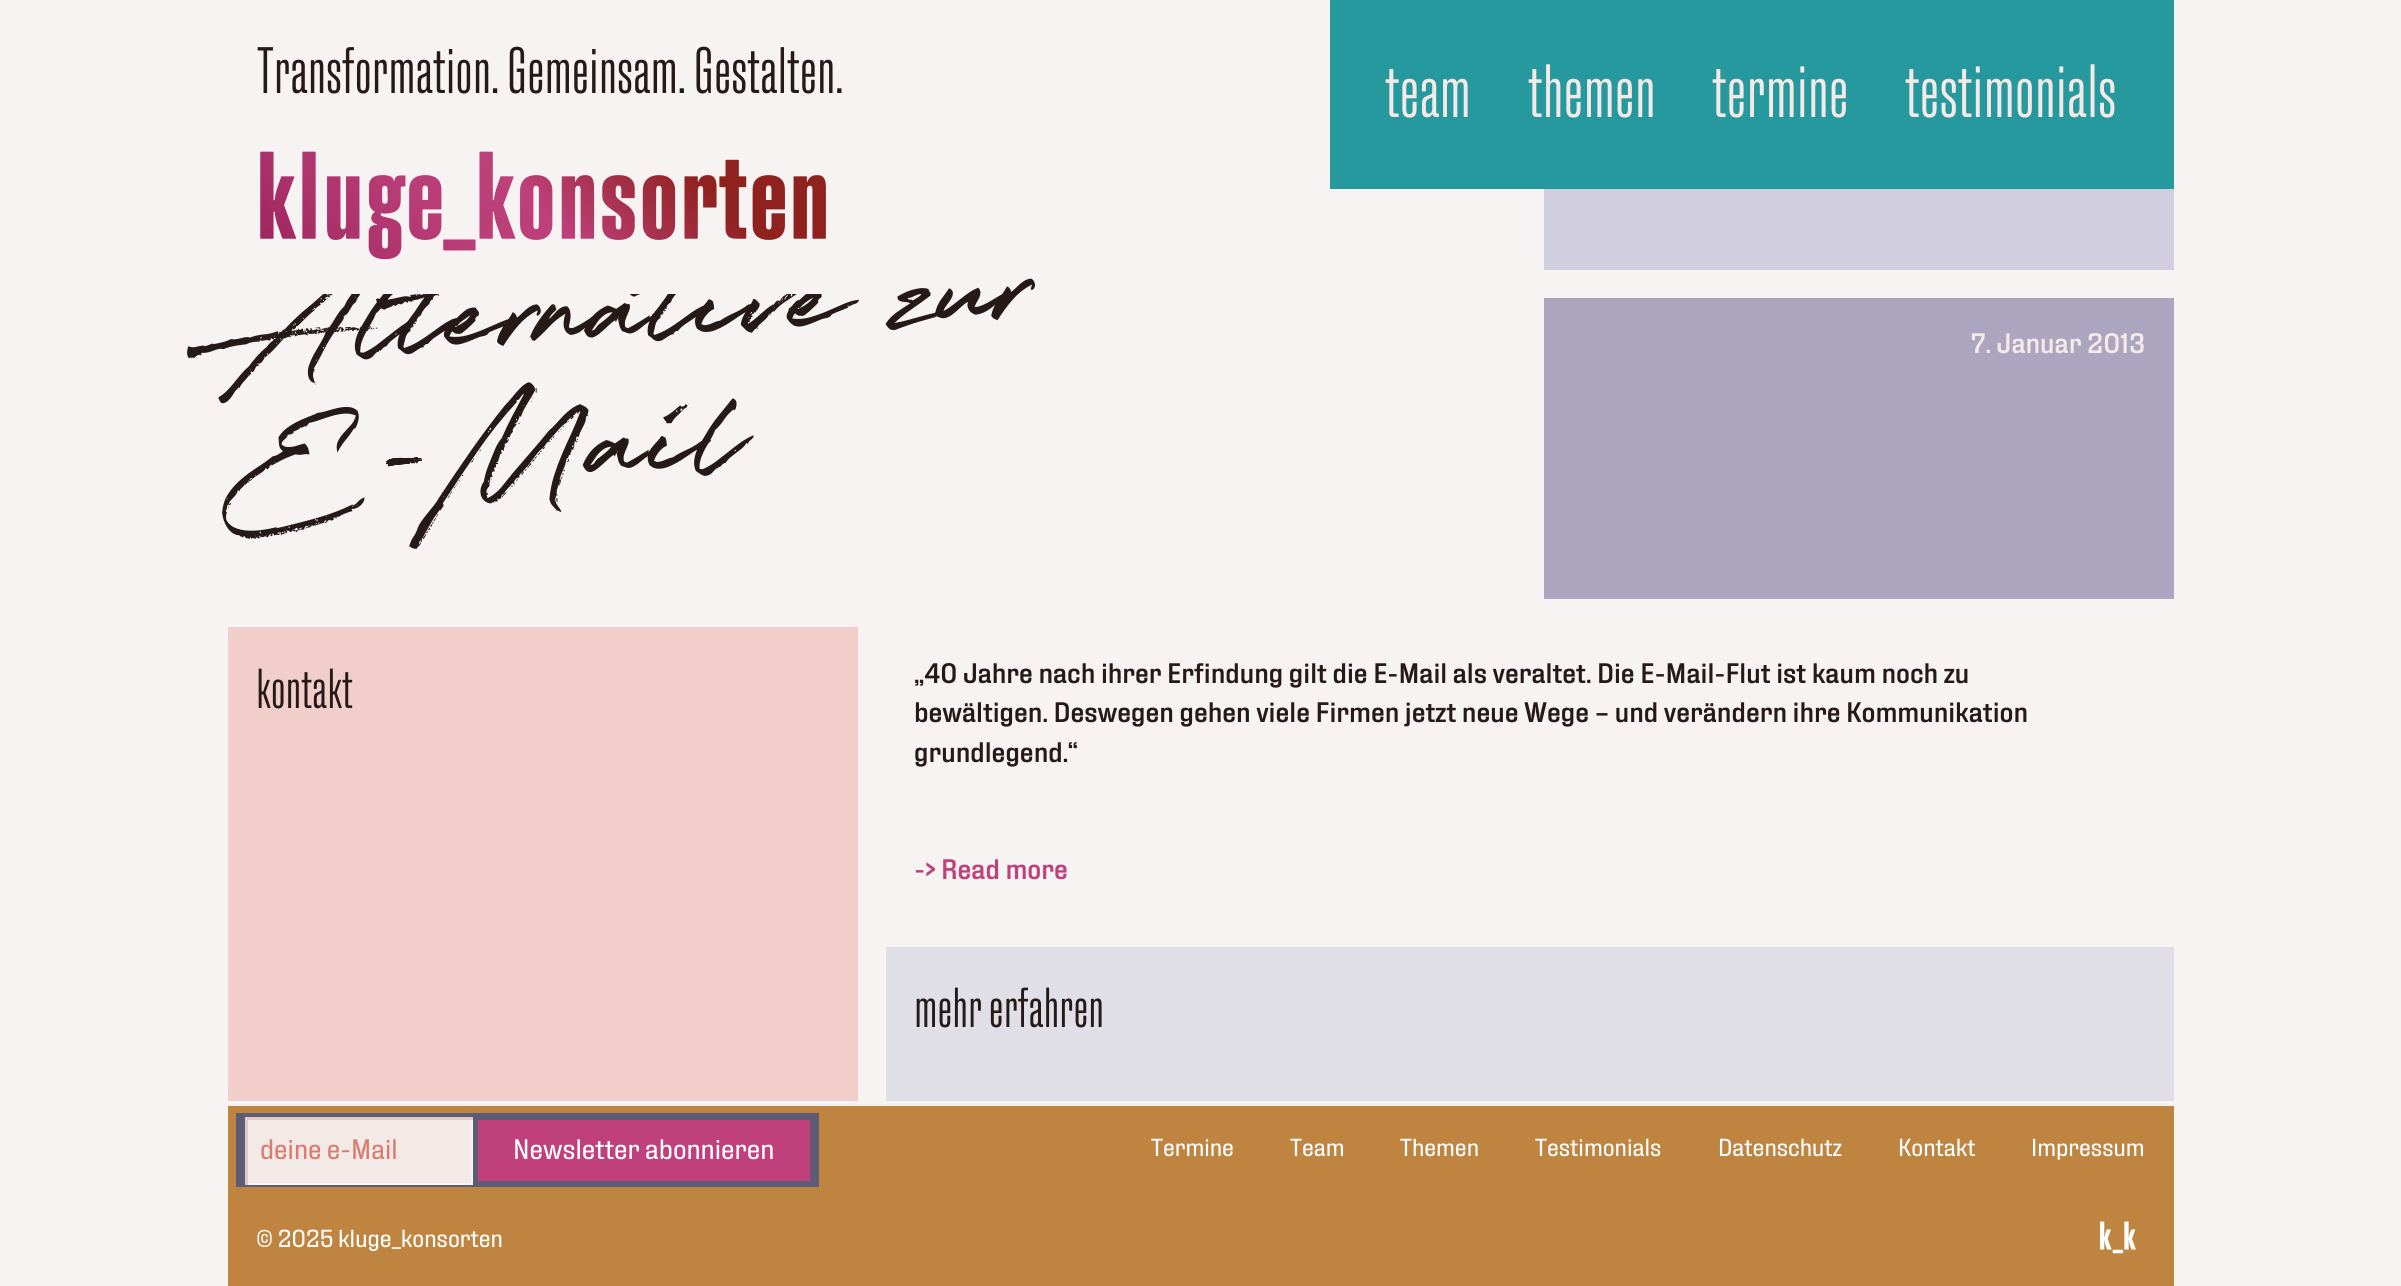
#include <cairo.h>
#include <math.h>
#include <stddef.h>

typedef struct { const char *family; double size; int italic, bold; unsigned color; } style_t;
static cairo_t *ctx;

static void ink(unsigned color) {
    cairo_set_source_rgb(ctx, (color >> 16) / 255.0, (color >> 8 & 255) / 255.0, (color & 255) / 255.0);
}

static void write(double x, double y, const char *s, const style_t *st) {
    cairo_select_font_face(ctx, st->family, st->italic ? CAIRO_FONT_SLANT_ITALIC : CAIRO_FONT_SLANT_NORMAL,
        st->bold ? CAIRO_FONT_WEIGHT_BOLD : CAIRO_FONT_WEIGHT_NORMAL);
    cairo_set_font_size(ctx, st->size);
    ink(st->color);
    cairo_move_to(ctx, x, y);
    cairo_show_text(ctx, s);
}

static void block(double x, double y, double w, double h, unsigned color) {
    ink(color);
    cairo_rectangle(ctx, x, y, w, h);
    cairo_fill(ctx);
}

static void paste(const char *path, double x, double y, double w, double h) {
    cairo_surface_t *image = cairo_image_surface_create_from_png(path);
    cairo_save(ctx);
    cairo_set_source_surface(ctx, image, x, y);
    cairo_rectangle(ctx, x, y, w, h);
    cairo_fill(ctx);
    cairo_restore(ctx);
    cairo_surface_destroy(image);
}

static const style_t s1 = {"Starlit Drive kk", 224, 0, 0, 0x251a18};
static const style_t s2 = {"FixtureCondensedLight", 65.25, 0, 0, 0x251a18};
static const style_t s3 = {"FixtureCondensedLight", 75, 0, 0, 0xf3e9e7};
static const style_t s4 = {"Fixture", 28, 0, 0, 0xf3e9e7};
static const style_t s5 = {"FixtureCondensedLight", 56, 0, 0, 0x251a18};
static const style_t s6 = {"Fixture", 28, 0, 0, 0x251a18};
static const style_t s7 = {"Fixture", 28, 0, 0, 0xbf407b};
static const style_t s8 = {"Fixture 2", 28, 0, 0, 0xd97d73};
static const style_t s9 = {"Fixture 2", 28, 0, 0, 0xffffff};
static const style_t s10 = {"Fixture 2", 24.5, 0, 0, 0xffffff};

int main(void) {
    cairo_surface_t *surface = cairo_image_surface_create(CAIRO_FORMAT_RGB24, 2401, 1286);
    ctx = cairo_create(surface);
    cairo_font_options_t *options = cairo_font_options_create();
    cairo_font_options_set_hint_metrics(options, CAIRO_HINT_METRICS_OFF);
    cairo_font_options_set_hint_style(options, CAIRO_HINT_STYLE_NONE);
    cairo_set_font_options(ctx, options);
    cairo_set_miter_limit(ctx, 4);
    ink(0xf7f3f2);
    cairo_paint(ctx);
    cairo_save(ctx);
    cairo_translate(ctx, 241, 402);
    cairo_rotate(ctx, -3 * M_PI / 180);
    write(0, 0, "Alternative zur", &s1);
    cairo_restore(ctx);
    block(323, 263, 499, 31, 0xf7f3f2);
    write(257, 93, "Transformation. Gemeinsam. Gestalten.", &s2);
    paste("pic1.png", 260, 151, 566, 109);
    block(1330, 0, 844, 189, 0x25999d);
    write(1385, 117, "team", &s3);
    write(1528, 117, "themen", &s3);
    write(1712, 117, "termine", &s3);
    write(1905, 117, "testimonials", &s3);
    block(1544, 189, 630, 81, 0xd1cedf);
    cairo_save(ctx);
    cairo_translate(ctx, 248, 536);
    cairo_rotate(ctx, -3 * M_PI / 180);
    write(0, 0, "E-Mail", &s1);
    cairo_restore(ctx);
    block(1544, 298, 630, 301, 0xaba5c0);
    write(1971, 353, "7. Januar 2013", &s4);
    block(228, 627, 630, 474, 0xf2ceca);
    write(256, 708, "kontakt", &s5);
    write(914, 683, "„40 Jahre nach ihrer Erfindung gilt die E-Mail als veraltet. Die E-Mail-Flut ist kaum noch zu", &s6);
    write(914, 722, "bewältigen. Deswegen gehen viele Firmen jetzt neue Wege – und verändern ihre Kommunikation", &s6);
    write(914, 762, "grundlegend.“", &s6);
    write(914, 879, "-> Read more", &s7);
    block(886, 947, 1288, 154, 0xe0dee7);
    write(914, 1027, "mehr erfahren", &s5);
    block(228, 1106, 1946, 180, 0xbf8440);
    block(236, 1113, 583, 74, 0x5d5b76);
    block(248, 1120, 223, 63, 0xf3e9e7);
    cairo_save(ctx);
    cairo_rectangle(ctx, 245, 1117, 228, 68);
    cairo_clip(ctx);
    ink(0xf7f3f2);
    cairo_set_fill_rule(ctx, CAIRO_FILL_RULE_EVEN_ODD);
    cairo_new_path(ctx);
    cairo_move_to(ctx, 72, 943);
    cairo_line_to(ctx, 646, 943);
    cairo_line_to(ctx, 646, 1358);
    cairo_line_to(ctx, 72, 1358);
    cairo_close_path(ctx);
    cairo_move_to(ctx, 243, 1115);
    cairo_line_to(ctx, 471, 1115);
    cairo_line_to(ctx, 471, 1183);
    cairo_line_to(ctx, 243, 1183);
    cairo_close_path(ctx);
    cairo_fill(ctx);
    ink(0xdeccc9);
    cairo_new_path(ctx);
    cairo_move_to(ctx, 72, 943);
    cairo_line_to(ctx, 646, 943);
    cairo_line_to(ctx, 646, 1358);
    cairo_line_to(ctx, 72, 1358);
    cairo_close_path(ctx);
    cairo_move_to(ctx, 248, 1120);
    cairo_line_to(ctx, 476, 1120);
    cairo_line_to(ctx, 476, 1188);
    cairo_line_to(ctx, 248, 1188);
    cairo_close_path(ctx);
    cairo_fill(ctx);
    cairo_restore(ctx);
    write(260, 1159, "deine e-Mail", &s8);
    block(478, 1120, 332, 61, 0xbf407b);
    write(513, 1159, "Newsletter abonnieren", &s9);
    write(1151, 1156, "Termine", &s10);
    write(1290, 1156, "Team", &s10);
    write(1400, 1156, "Themen", &s10);
    write(1535, 1156, "Testimonials", &s10);
    write(1718, 1156, "Datenschutz", &s10);
    write(1898, 1156, "Kontakt", &s10);
    write(2031, 1156, "Impressum", &s10);
    write(256, 1247, "© 2025 kluge_konsorten", &s10);
    paste("pic2.png", 2100, 1221, 36, 33);
    cairo_surface_write_to_png(surface, "screenshot.png");
    cairo_font_options_destroy(options);
    cairo_destroy(ctx);
    cairo_surface_destroy(surface);
    return 0;
}
